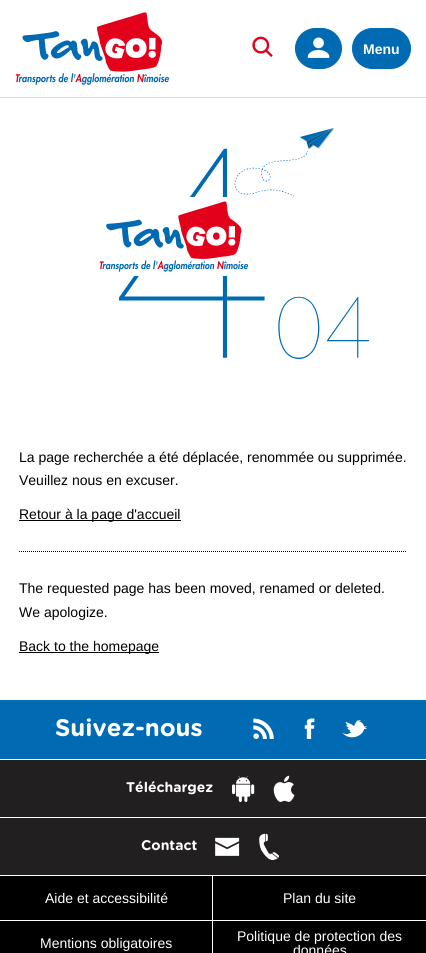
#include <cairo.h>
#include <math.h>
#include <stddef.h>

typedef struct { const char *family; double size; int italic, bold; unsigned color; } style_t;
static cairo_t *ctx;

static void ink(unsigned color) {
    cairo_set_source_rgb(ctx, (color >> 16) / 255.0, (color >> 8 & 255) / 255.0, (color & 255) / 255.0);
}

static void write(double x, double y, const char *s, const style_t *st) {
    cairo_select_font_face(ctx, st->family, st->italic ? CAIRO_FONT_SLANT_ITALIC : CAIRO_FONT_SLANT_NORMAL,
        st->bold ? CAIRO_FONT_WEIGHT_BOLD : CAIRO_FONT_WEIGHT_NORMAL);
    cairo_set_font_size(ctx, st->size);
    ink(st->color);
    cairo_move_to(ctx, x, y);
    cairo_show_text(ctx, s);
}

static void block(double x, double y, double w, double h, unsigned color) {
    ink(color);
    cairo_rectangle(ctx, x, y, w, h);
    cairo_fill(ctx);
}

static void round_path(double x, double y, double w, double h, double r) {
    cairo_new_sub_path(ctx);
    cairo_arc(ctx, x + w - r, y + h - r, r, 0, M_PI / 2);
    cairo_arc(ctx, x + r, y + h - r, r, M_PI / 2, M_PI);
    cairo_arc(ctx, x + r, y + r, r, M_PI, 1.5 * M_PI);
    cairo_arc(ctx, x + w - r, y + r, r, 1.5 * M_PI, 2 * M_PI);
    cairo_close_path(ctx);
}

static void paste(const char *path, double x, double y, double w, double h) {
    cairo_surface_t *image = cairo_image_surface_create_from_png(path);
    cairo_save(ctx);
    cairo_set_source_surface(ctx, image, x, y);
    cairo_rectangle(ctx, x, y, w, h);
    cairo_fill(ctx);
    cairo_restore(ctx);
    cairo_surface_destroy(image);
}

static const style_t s1 = {"Liberation Sans", 14, 0, 1, 0xffffff};
static const style_t s2 = {"Liberation Sans", 14, 0, 0, 0x000000};
static const style_t s3 = {"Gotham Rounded", 24, 0, 1, 0xffffff};
static const style_t s4 = {"Gotham Rounded", 14, 0, 1, 0xffffff};
static const style_t s5 = {"Liberation Sans", 14, 0, 0, 0xffffff};

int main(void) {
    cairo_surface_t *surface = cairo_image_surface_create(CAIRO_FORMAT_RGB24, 426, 953);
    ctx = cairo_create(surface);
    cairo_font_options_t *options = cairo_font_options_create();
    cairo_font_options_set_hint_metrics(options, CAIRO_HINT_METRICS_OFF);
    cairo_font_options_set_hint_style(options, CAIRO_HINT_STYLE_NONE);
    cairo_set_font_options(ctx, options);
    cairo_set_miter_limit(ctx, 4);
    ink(0xffffff);
    cairo_paint(ctx);
    block(0, 97, 426, 1, 0xdedede);
    paste("pic1.png", 15, 12, 154, 73);
    paste("pic2.png", 252, 36, 21, 21);
    ink(0x006bb3);
    round_path(295.5, 28.5, 46, 40, 20);
    cairo_fill_preserve(ctx);
    cairo_set_line_width(ctx, 1);
    cairo_stroke(ctx);
    paste("pic3.png", 307, 37, 23, 21);
    round_path(352.5, 28.5, 58, 40, 20);
    cairo_fill_preserve(ctx);
    cairo_stroke(ctx);
    write(363, 54, "Menu", &s1);
    paste("pic4.png", 119, 128, 250, 231);
    block(134, 197, 94, 79, 0xffffff);
    paste("pic5.png", 99, 201, 150, 71);
    write(19, 462, "La page recherchée a été déplacée, renommée ou supprimée.", &s2);
    write(19, 485, "Veuillez nous en excuser.", &s2);
    block(19, 520, 162, 1, 0x000000);
    write(19, 519, "Retour à la page d'accueil", &s2);
    cairo_new_path(ctx);
    cairo_move_to(ctx, 19, 551.5);
    cairo_line_to(ctx, 407, 551.5);
    cairo_set_dash(ctx, (double[]){1, 1}, 2, 0);
    cairo_stroke(ctx);
    write(19, 593, "The requested page has been moved, renamed or deleted.", &s2);
    write(19, 617, "We apologize.", &s2);
    block(19, 652, 140, 1, 0x000000);
    write(19, 651, "Back to the homepage", &s2);
    block(0, 760, 426, 115, 0x221f20);
    block(0, 700, 426, 59, 0x006bb3);
    write(55, 736, "Suivez-nous", &s3);
    paste("pic6.png", 253, 718, 21, 21);
    paste("pic7.png", 304, 718, 11, 21);
    paste("pic8.png", 342, 720, 25, 18);
    write(126, 792, "Téléchargez", &s4);
    paste("pic9.png", 232, 775, 23, 27);
    paste("pic10.png", 273, 775, 22, 27);
    block(0, 817, 426, 1, 0xffffff);
    write(141, 850, "Contact", &s4);
    paste("pic11.png", 215, 837, 25, 19);
    paste("pic12.png", 259, 833, 20, 28);
    block(0, 876, 426, 77, 0x000000);
    block(212, 875, 1, 45, 0xffffff);
    write(45, 903, "Aide et accessibilité", &s5);
    write(283, 903, "Plan du site", &s5);
    block(0, 920, 426, 1, 0xffffff);
    block(212, 920, 1, 33, 0xffffff);
    write(40, 948, "Mentions obligatoires", &s5);
    write(237, 941, "Politique de protection des", &s5);
    write(293, 955, "données", &s5);
    cairo_surface_write_to_png(surface, "screenshot.png");
    cairo_font_options_destroy(options);
    cairo_destroy(ctx);
    cairo_surface_destroy(surface);
    return 0;
}
